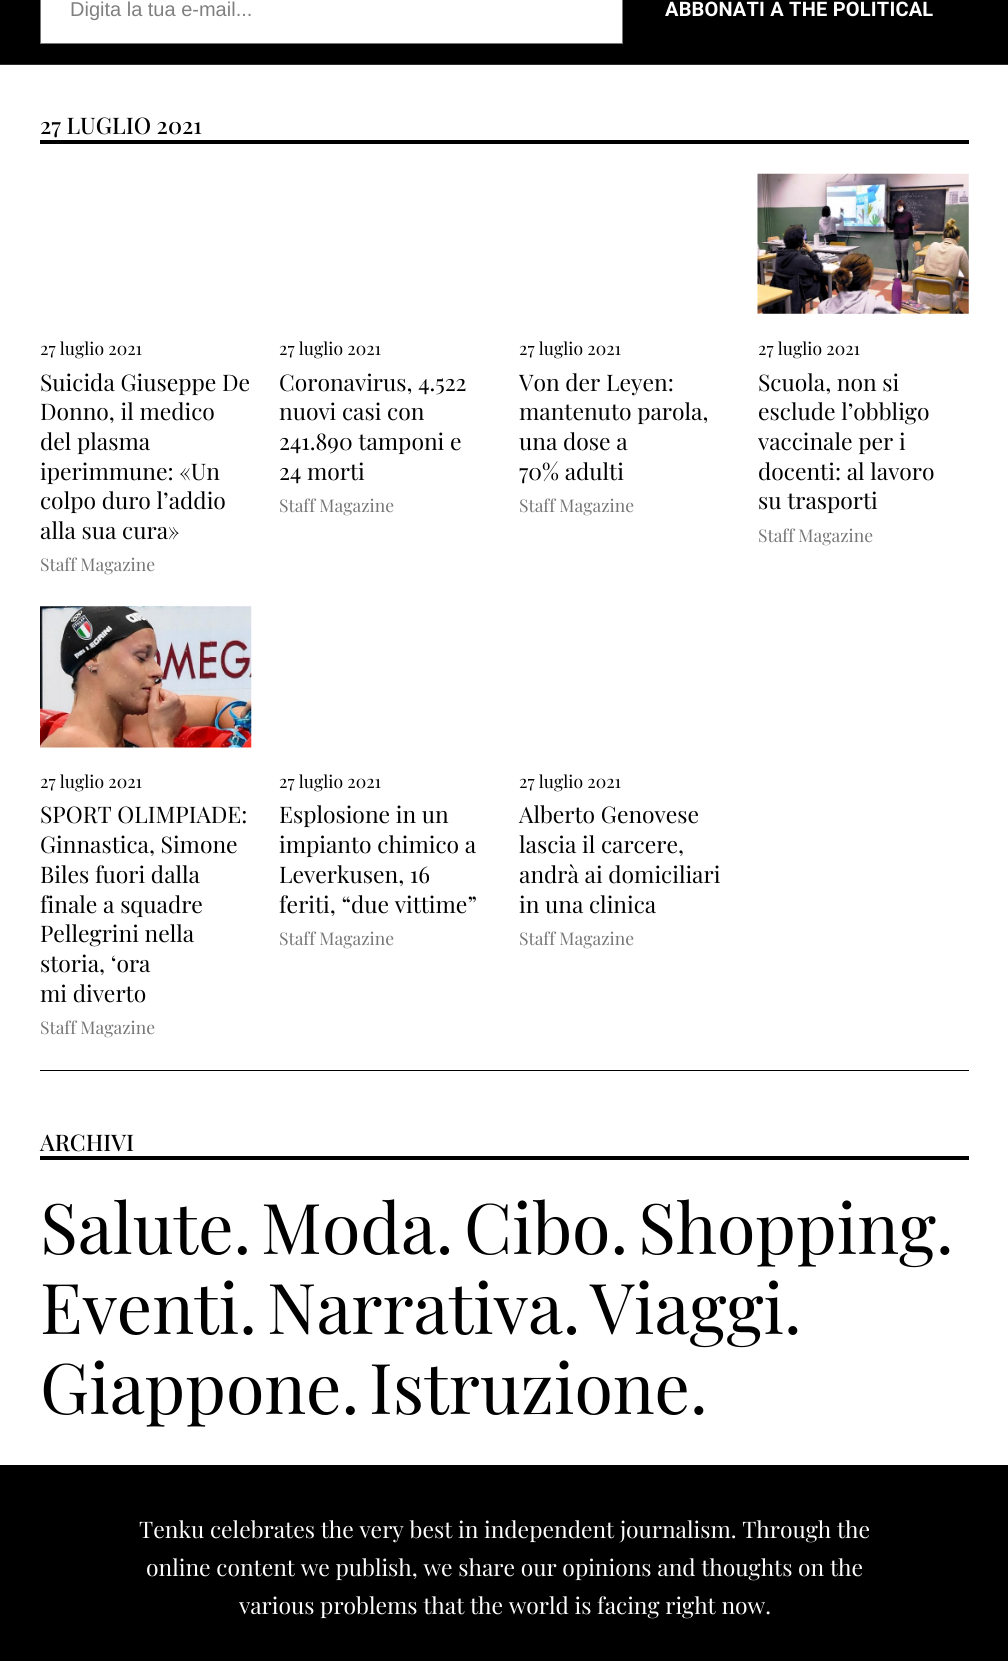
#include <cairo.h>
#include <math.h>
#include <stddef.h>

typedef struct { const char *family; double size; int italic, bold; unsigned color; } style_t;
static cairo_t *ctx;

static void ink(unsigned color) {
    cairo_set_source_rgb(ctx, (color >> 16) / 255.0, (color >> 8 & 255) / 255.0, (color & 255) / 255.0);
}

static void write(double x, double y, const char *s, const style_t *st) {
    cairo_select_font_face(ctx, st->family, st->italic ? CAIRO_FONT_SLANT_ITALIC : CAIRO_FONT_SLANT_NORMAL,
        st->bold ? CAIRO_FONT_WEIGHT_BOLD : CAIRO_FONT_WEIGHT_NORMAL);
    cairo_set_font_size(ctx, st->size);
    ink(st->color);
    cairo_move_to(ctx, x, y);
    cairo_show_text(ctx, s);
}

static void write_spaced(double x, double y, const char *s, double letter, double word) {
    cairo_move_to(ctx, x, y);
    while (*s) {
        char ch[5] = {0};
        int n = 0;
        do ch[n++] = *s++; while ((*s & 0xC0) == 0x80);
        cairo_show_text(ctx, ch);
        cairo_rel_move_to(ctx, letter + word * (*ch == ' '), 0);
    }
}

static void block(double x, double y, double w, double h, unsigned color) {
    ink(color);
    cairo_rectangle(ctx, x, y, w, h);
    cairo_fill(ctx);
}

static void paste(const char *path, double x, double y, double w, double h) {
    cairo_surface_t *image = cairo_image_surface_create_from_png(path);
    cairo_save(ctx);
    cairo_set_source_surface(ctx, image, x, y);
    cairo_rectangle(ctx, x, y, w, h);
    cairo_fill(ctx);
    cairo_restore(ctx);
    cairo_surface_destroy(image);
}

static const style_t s1 = {"Liberation Sans", 20, 0, 0, 0x808080};
static const style_t s2 = {"Playfair Display Medium", 22.85, 0, 0, 0x000000};
static const style_t s3 = {"Playfair Display", 17.5, 0, 0, 0x000000};
static const style_t s4 = {"Playfair Display", 22.85, 0, 0, 0x000000};
static const style_t s5 = {"Playfair Display", 17.5, 0, 0, 0x757575};
static const style_t s6 = {"Playfair Display", 70, 0, 0, 0x000000};
static const style_t s7 = {"Playfair Display", 22.85, 0, 0, 0xffffff};

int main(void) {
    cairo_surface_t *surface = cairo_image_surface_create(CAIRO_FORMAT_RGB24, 1008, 1661);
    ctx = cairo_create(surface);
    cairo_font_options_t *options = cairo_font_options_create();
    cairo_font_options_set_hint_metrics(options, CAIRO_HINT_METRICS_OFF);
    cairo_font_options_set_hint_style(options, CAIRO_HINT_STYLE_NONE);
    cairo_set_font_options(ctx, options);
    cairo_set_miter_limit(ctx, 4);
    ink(0xffffff);
    cairo_paint(ctx);
    block(0, 0, 1008, 64, 0x000000);
    block(0, 64, 1008, 1, 0x2e2e2e);
    ink(0xffffff);
    cairo_rectangle(ctx, 40.5, -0.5, 582, 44);
    cairo_fill_preserve(ctx);
    ink(0x767676);
    cairo_set_line_width(ctx, 1);
    cairo_stroke(ctx);
    write(70, 16, "Digita la tua e-mail...", &s1);
    cairo_select_font_face(ctx, "Roboto", CAIRO_FONT_SLANT_NORMAL, CAIRO_FONT_WEIGHT_BOLD);
    ink(0xffffff);
    write_spaced(665, 16, "ABBONATI A THE POLITICAL", 0.2, 0);
    block(40, 140, 929, 4, 0x000000);
    write(40, 134, "27 LUGLIO 2021", &s2);
    write(40, 355, "27 luglio 2021", &s3);
    write(40, 391, "Suicida Giuseppe De", &s4);
    write(40, 420, "Donno, il medico", &s4);
    write(40, 450, "del plasma", &s4);
    write(40, 480, "iperimmune: «Un", &s4);
    write(40, 509, "colpo duro l’addio", &s4);
    write(40, 539, "alla sua cura»", &s4);
    write(40, 571, "Staff Magazine", &s5);
    write(279, 355, "27 luglio 2021", &s3);
    write(279, 391, "Coronavirus, 4.522", &s4);
    write(279, 420, "nuovi casi con", &s4);
    write(279, 450, "241.890 tamponi e", &s4);
    write(279, 480, "24 morti", &s4);
    write(279, 512, "Staff Magazine", &s5);
    write(519, 355, "27 luglio 2021", &s3);
    write(519, 391, "Von der Leyen:", &s4);
    write(519, 420, "mantenuto parola,", &s4);
    write(519, 450, "una dose a", &s4);
    write(519, 480, "70% adulti", &s4);
    write(519, 512, "Staff Magazine", &s5);
    paste("pic1.png", 757, 173, 212, 141);
    write(758, 355, "27 luglio 2021", &s3);
    write(758, 391, "Scuola, non si", &s4);
    write(758, 420, "esclude l’obbligo", &s4);
    write(758, 450, "vaccinale per i", &s4);
    write(758, 480, "docenti: al lavoro", &s4);
    write(758, 509, "su trasporti", &s4);
    write(758, 542, "Staff Magazine", &s5);
    paste("pic2.png", 40, 606, 212, 142);
    write(40, 788, "27 luglio 2021", &s3);
    write(40, 823, "SPORT OLIMPIADE:", &s4);
    write(40, 853, "Ginnastica, Simone", &s4);
    write(40, 883, "Biles fuori dalla", &s4);
    write(40, 913, "finale a squadre", &s4);
    write(40, 942, "Pellegrini nella", &s4);
    write(40, 972, "storia, ‘ora", &s4);
    write(40, 1002, "mi diverto", &s4);
    write(40, 1034, "Staff Magazine", &s5);
    write(279, 788, "27 luglio 2021", &s3);
    write(279, 823, "Esplosione in un", &s4);
    write(279, 853, "impianto chimico a", &s4);
    write(279, 883, "Leverkusen, 16", &s4);
    write(279, 913, "feriti, “due vittime”", &s4);
    write(279, 945, "Staff Magazine", &s5);
    write(519, 788, "27 luglio 2021", &s3);
    write(519, 823, "Alberto Genovese", &s4);
    write(519, 853, "lascia il carcere,", &s4);
    write(519, 883, "andrà ai domiciliari", &s4);
    write(519, 913, "in una clinica", &s4);
    write(519, 945, "Staff Magazine", &s5);
    block(40, 1070, 929, 1, 0x000000);
    block(40, 1156, 929, 4, 0x000000);
    write(40, 1151, "ARCHIVI", &s2);
    write(40, 1254, "Salute.", &s6);
    write(261, 1254, "Moda.", &s6);
    write(464, 1254, "Cibo.", &s6);
    write(638, 1254, "Shopping.", &s6);
    write(40, 1334, "Eventi.", &s6);
    write(267, 1334, "Narrativa.", &s6);
    write(590, 1334, "Viaggi.", &s6);
    write(40, 1414, "Giappone.", &s6);
    write(369, 1414, "Istruzione.", &s6);
    block(0, 1465, 1008, 196, 0x000000);
    write(139, 1538, "Tenku celebrates the very best in independent journalism. Through the", &s7);
    write(146, 1576, "online content we publish, we share our opinions and thoughts on the", &s7);
    write(239, 1614, "various problems that the world is facing right now.", &s7);
    cairo_surface_write_to_png(surface, "screenshot.png");
    cairo_font_options_destroy(options);
    cairo_destroy(ctx);
    cairo_surface_destroy(surface);
    return 0;
}
